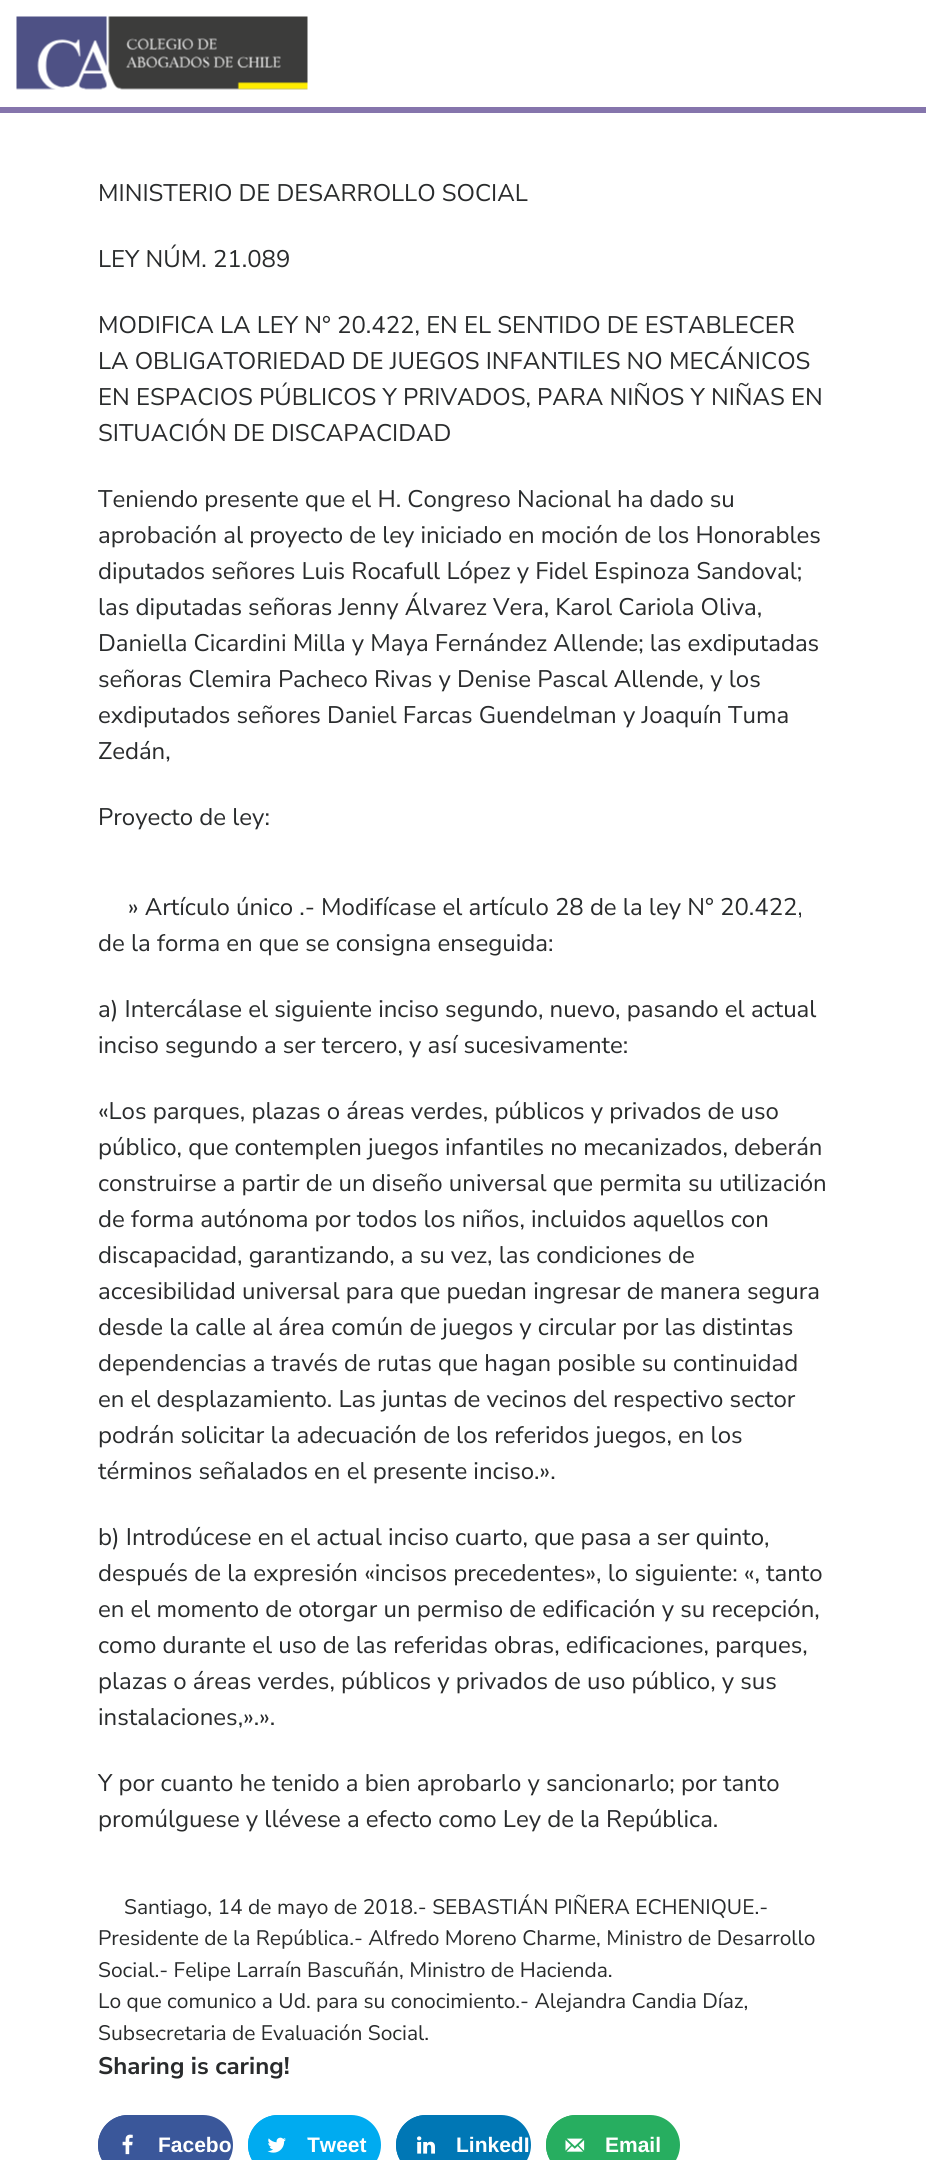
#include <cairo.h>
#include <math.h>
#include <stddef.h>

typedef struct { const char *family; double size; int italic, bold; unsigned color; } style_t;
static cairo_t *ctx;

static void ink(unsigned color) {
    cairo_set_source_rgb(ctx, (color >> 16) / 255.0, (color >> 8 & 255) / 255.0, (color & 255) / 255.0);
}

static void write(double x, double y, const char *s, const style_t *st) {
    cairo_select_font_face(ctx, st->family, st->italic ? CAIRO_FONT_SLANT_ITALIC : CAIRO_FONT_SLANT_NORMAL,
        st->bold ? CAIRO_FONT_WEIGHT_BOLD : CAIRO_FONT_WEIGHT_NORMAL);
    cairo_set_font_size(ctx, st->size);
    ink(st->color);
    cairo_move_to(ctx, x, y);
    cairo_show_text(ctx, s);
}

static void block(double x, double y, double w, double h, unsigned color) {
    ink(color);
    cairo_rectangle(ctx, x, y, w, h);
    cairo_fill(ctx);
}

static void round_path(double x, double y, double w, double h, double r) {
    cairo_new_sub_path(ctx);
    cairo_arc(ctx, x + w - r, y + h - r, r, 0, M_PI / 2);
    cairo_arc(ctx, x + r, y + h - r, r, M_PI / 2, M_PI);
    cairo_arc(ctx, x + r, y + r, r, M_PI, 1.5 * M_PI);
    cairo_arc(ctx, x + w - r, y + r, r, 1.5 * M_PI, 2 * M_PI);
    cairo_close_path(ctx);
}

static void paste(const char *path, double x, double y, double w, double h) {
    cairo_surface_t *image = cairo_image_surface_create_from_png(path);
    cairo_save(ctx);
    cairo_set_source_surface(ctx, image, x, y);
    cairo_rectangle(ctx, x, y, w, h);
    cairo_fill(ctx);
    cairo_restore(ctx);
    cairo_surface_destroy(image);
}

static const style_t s1 = {"Nunito Sans", 24, 0, 0, 0x292b2c};
static const style_t s2 = {"Nunito Sans", 21, 0, 0, 0x292b2c};
static const style_t s3 = {"Nunito Sans", 24, 0, 1, 0x292b2c};
static const style_t s4 = {"Liberation Sans", 21, 0, 1, 0xffffff};

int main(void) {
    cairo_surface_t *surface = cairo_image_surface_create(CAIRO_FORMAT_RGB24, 926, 2160);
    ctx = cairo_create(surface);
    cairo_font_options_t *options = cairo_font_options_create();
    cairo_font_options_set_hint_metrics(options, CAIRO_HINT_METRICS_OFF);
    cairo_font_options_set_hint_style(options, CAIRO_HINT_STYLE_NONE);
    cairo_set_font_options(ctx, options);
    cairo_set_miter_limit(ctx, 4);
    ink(0xffffff);
    cairo_paint(ctx);
    block(0, 107, 926, 6, 0x8575ac);
    paste("pic1.png", 16, 16, 292, 74);
    write(98, 201, "MINISTERIO DE DESARROLLO SOCIAL", &s1);
    write(98, 267, "LEY NÚM. 21.089", &s1);
    write(98, 333, "MODIFICA LA LEY N° 20.422, EN EL SENTIDO DE ESTABLECER", &s1);
    write(98, 369, "LA OBLIGATORIEDAD DE JUEGOS INFANTILES NO MECÁNICOS", &s1);
    write(98, 405, "EN ESPACIOS PÚBLICOS Y PRIVADOS, PARA NIÑOS Y NIÑAS EN", &s1);
    write(98, 441, "SITUACIÓN DE DISCAPACIDAD", &s1);
    write(98, 507, "Teniendo presente que el H. Congreso Nacional ha dado su", &s1);
    write(98, 543, "aprobación al proyecto de ley iniciado en moción de los Honorables", &s1);
    write(98, 579, "diputados señores Luis Rocafull López y Fidel Espinoza Sandoval;", &s1);
    write(98, 615, "las diputadas señoras Jenny Álvarez Vera, Karol Cariola Oliva,", &s1);
    write(98, 651, "Daniella Cicardini Milla y Maya Fernández Allende; las exdiputadas", &s1);
    write(98, 687, "señoras Clemira Pacheco Rivas y Denise Pascal Allende, y los", &s1);
    write(98, 723, "exdiputados señores Daniel Farcas Guendelman y Joaquín Tuma", &s1);
    write(98, 759, "Zedán,", &s1);
    write(98, 825, "Proyecto de ley:", &s1);
    write(128, 915, "» Artículo único .- Modifícase el artículo 28 de la ley N° 20.422,", &s1);
    write(98, 951, "de la forma en que se consigna enseguida:", &s1);
    write(98, 1017, "a) Intercálase el siguiente inciso segundo, nuevo, pasando el actual", &s1);
    write(98, 1053, "inciso segundo a ser tercero, y así sucesivamente:", &s1);
    write(98, 1119, "«Los parques, plazas o áreas verdes, públicos y privados de uso", &s1);
    write(98, 1155, "público, que contemplen juegos infantiles no mecanizados, deberán", &s1);
    write(98, 1191, "construirse a partir de un diseño universal que permita su utilización", &s1);
    write(98, 1227, "de forma autónoma por todos los niños, incluidos aquellos con", &s1);
    write(98, 1263, "discapacidad, garantizando, a su vez, las condiciones de", &s1);
    write(98, 1299, "accesibilidad universal para que puedan ingresar de manera segura", &s1);
    write(98, 1335, "desde la calle al área común de juegos y circular por las distintas", &s1);
    write(98, 1371, "dependencias a través de rutas que hagan posible su continuidad", &s1);
    write(98, 1407, "en el desplazamiento. Las juntas de vecinos del respectivo sector", &s1);
    write(98, 1443, "podrán solicitar la adecuación de los referidos juegos, en los", &s1);
    write(98, 1479, "términos señalados en el presente inciso.».", &s1);
    write(98, 1545, "b) Introdúcese en el actual inciso cuarto, que pasa a ser quinto,", &s1);
    write(98, 1581, "después de la expresión «incisos precedentes», lo siguiente: «, tanto", &s1);
    write(98, 1617, "en el momento de otorgar un permiso de edificación y su recepción,", &s1);
    write(98, 1653, "como durante el uso de las referidas obras, edificaciones, parques,", &s1);
    write(98, 1689, "plazas o áreas verdes, públicos y privados de uso público, y sus", &s1);
    write(98, 1725, "instalaciones,».».", &s1);
    write(98, 1791, "Y por cuanto he tenido a bien aprobarlo y sancionarlo; por tanto", &s1);
    write(98, 1827, "promúlguese y llévese a efecto como Ley de la República.", &s1);
    write(124, 1914, "Santiago, 14 de mayo de 2018.- SEBASTIÁN PIÑERA ECHENIQUE.-", &s2);
    write(98, 1945, "Presidente de la República.- Alfredo Moreno Charme, Ministro de Desarrollo", &s2);
    write(98, 1977, "Social.- Felipe Larraín Bascuñán, Ministro de Hacienda.", &s2);
    write(98, 2008, "Lo que comunico a Ud. para su conocimiento.- Alejandra Candia Díaz,", &s2);
    write(98, 2040, "Subsecretaria de Evaluación Social.", &s2);
    write(98, 2074, "Sharing is caring!", &s3);
    ink(0x3a579a);
    round_path(99.5, 2116.5, 132, 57, 28.5);
    cairo_fill_preserve(ctx);
    cairo_set_line_width(ctx, 3);
    cairo_stroke(ctx);
    cairo_arc(ctx, 128, 2145, 28.5, 0, 2 * M_PI);
    cairo_fill_preserve(ctx);
    cairo_stroke(ctx);
    paste("pic2.png", 122, 2134, 11, 21);
    write(158, 2152, "Facebo", &s4);
    ink(0x00abf0);
    round_path(249.5, 2116.5, 130, 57, 28.5);
    cairo_fill_preserve(ctx);
    cairo_stroke(ctx);
    write(307, 2152, "Tweet", &s4);
    ink(0x00abf0);
    cairo_new_path(ctx);
    cairo_arc(ctx, 278, 2145, 28.5, 0, 2 * M_PI);
    cairo_fill_preserve(ctx);
    cairo_stroke(ctx);
    paste("pic3.png", 267, 2137, 19, 16);
    ink(0x0077b5);
    round_path(397.5, 2116.5, 132, 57, 28.5);
    cairo_fill_preserve(ctx);
    cairo_stroke(ctx);
    cairo_arc(ctx, 426, 2145, 28.5, 0, 2 * M_PI);
    cairo_fill_preserve(ctx);
    cairo_stroke(ctx);
    paste("pic4.png", 417, 2136, 18, 18);
    write(456, 2152, "LinkedI", &s4);
    ink(0x27ae60);
    round_path(547.5, 2116.5, 131, 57, 28.5);
    cairo_fill_preserve(ctx);
    cairo_stroke(ctx);
    cairo_arc(ctx, 576, 2145, 28.5, 0, 2 * M_PI);
    cairo_fill_preserve(ctx);
    cairo_stroke(ctx);
    paste("pic5.png", 565, 2138, 20, 14);
    write(605, 2152, "Email", &s4);
    cairo_surface_write_to_png(surface, "screenshot.png");
    cairo_font_options_destroy(options);
    cairo_destroy(ctx);
    cairo_surface_destroy(surface);
    return 0;
}
